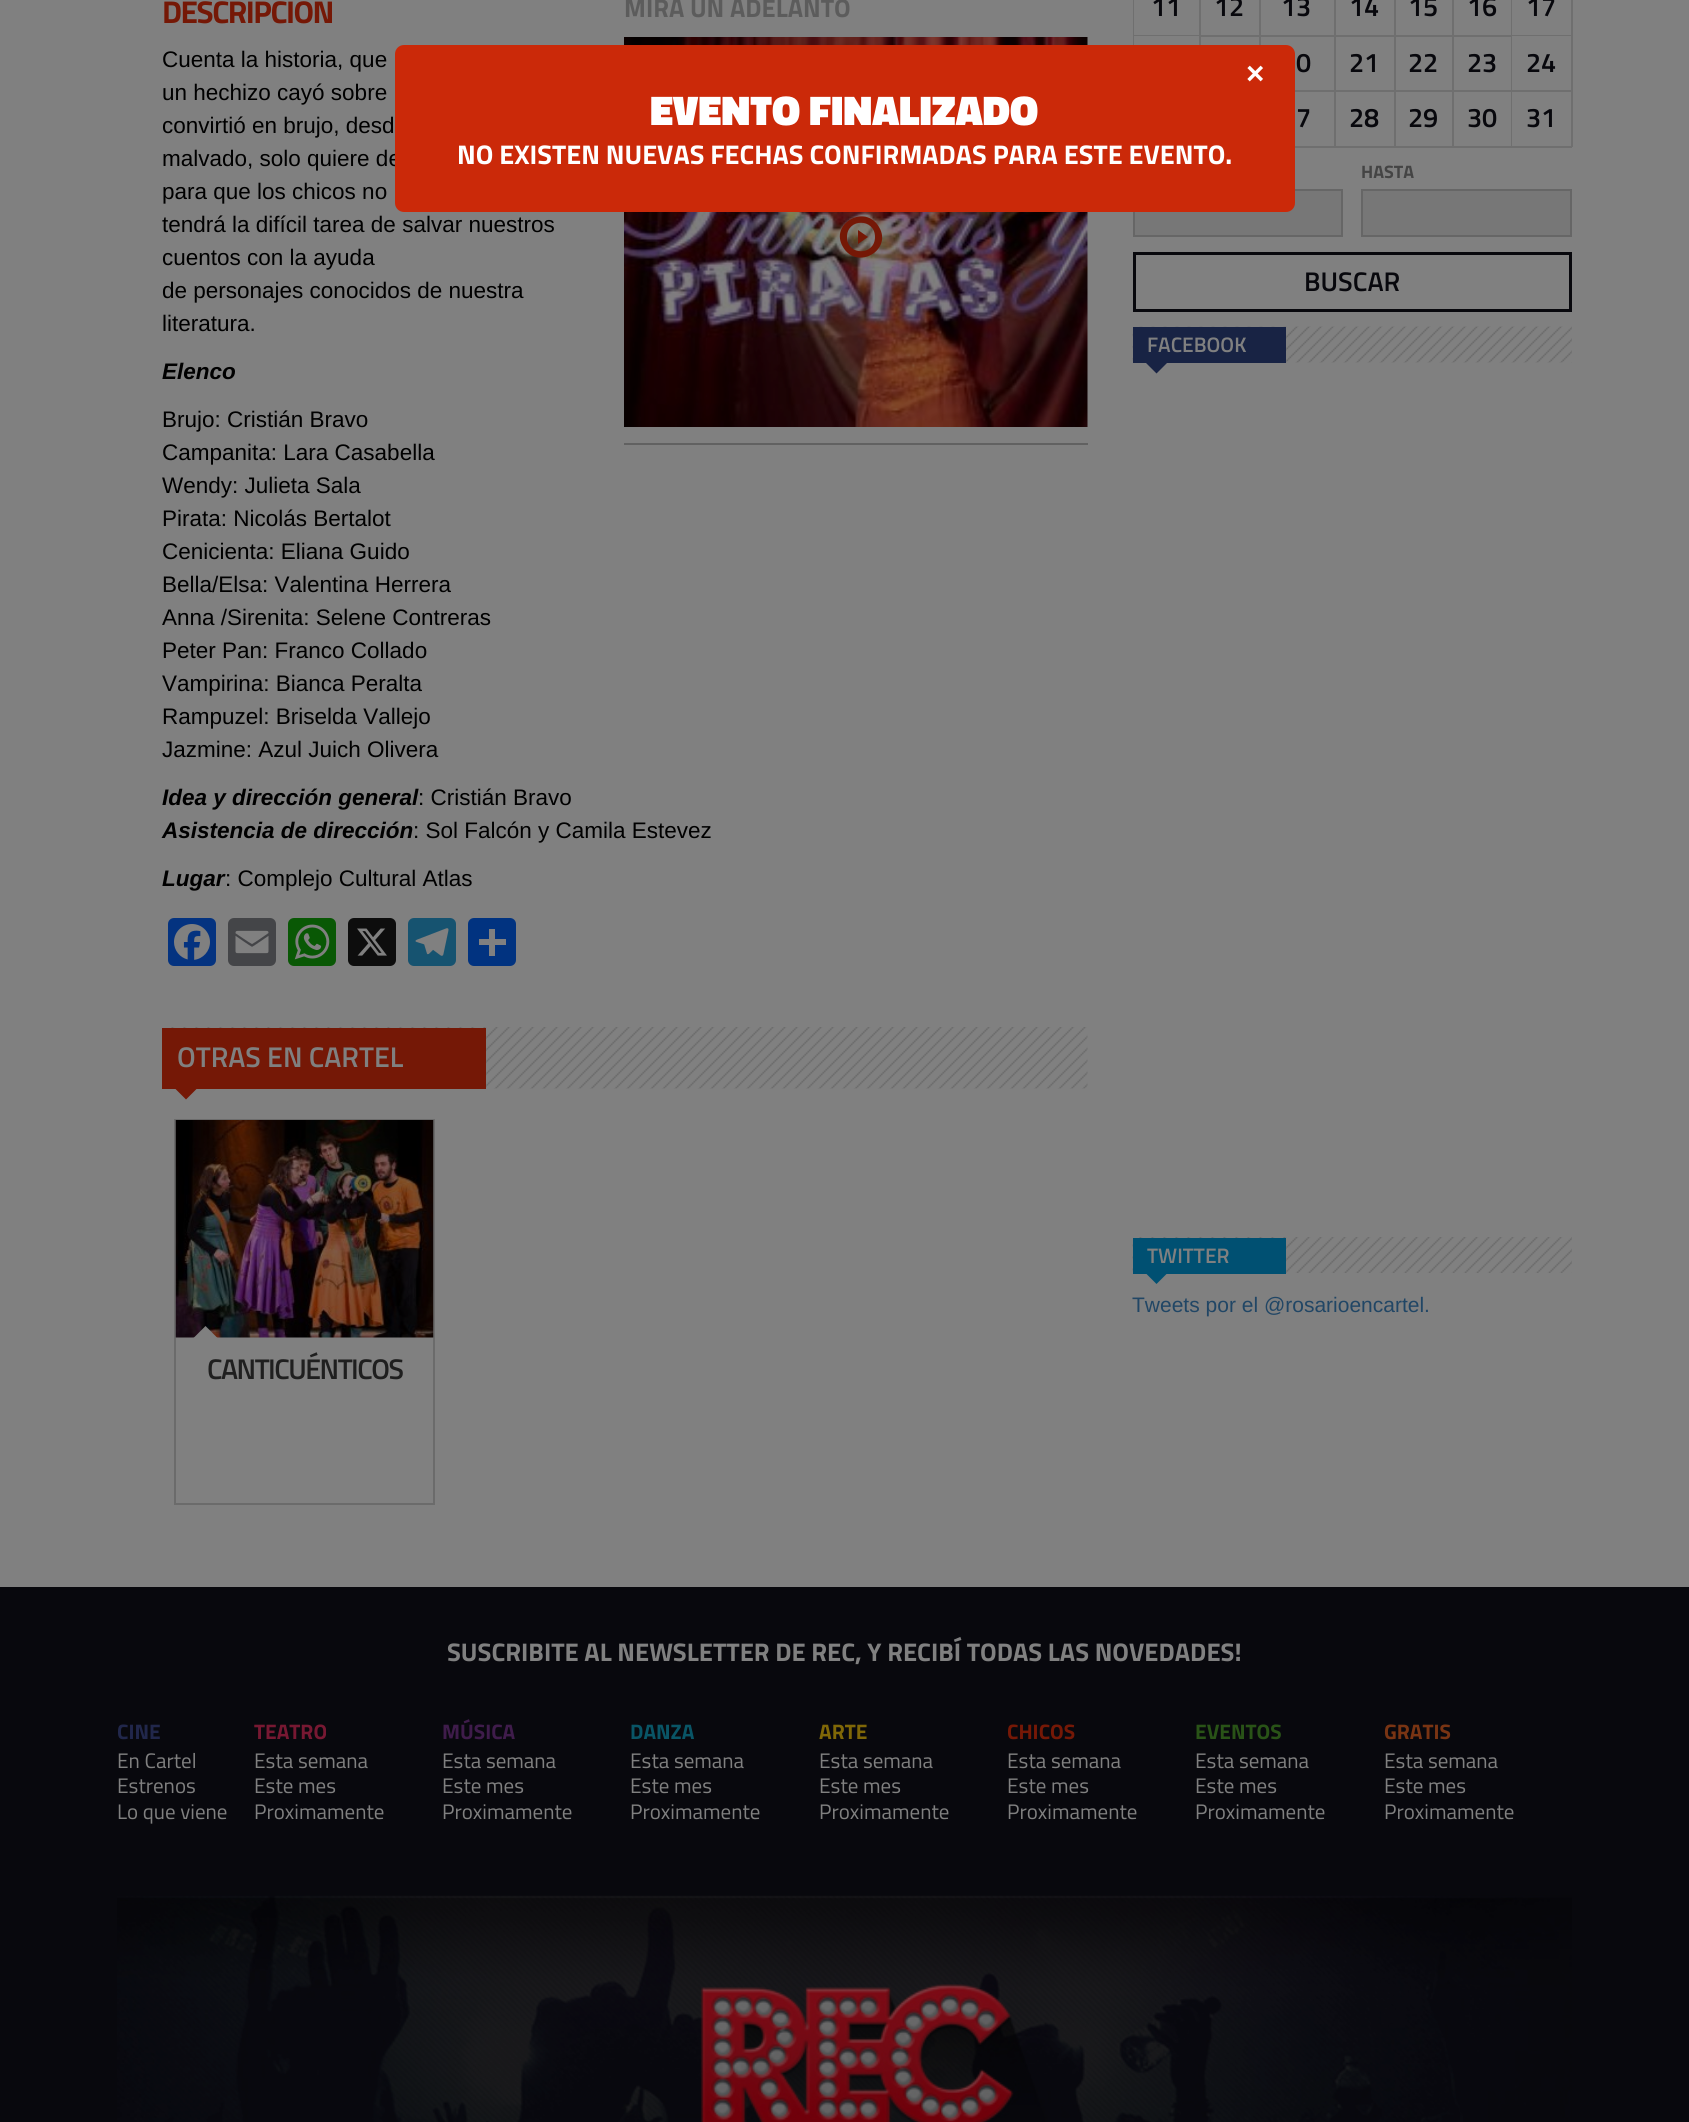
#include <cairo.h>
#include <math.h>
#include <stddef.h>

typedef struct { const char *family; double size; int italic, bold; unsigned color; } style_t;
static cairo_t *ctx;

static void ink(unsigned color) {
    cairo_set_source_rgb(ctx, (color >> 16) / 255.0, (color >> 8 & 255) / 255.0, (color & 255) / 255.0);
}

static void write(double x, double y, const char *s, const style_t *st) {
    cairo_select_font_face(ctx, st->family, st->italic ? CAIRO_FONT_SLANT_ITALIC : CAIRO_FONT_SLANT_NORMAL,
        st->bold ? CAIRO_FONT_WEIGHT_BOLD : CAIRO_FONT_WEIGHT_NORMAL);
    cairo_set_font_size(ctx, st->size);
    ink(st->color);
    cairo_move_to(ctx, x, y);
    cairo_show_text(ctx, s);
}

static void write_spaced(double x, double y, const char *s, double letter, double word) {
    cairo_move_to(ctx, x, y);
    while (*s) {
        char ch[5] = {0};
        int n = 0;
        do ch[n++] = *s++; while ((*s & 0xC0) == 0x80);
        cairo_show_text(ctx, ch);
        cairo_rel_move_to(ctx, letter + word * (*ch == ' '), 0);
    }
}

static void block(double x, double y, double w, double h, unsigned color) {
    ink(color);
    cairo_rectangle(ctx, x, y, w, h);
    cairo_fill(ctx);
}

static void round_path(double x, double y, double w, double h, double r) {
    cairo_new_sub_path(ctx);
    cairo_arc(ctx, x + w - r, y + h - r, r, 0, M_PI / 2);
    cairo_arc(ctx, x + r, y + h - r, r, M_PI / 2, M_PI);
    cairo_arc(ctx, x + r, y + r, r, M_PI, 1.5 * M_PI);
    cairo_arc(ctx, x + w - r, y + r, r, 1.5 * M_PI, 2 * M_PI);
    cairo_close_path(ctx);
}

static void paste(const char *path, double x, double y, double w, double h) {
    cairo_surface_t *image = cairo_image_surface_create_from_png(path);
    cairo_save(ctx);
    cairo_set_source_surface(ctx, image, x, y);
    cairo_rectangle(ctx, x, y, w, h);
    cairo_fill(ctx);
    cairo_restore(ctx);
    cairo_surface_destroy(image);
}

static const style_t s1 = {"Liberation Sans", 22.5, 0, 0, 0x000000};
static const style_t s2 = {"Liberation Sans", 22.5, 1, 1, 0x000000};
static const style_t s3 = {"Titillium Web", 25.5, 0, 1, 0x5c5c5c};
static const style_t s4 = {"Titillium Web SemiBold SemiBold", 28.5, 0, 0, 0x808080};
static const style_t s5 = {"Titillium Web SemiBold SemiBold", 27, 0, 0, 0x08080d};
static const style_t s6 = {"Titillium Web", 18, 0, 1, 0x444444};
static const style_t s7 = {"Titillium Web SemiBold SemiBold", 21, 0, 0, 0x808080};
static const style_t s8 = {"Liberation Sans", 21, 0, 0, 0x214665};
static const style_t s9 = {"Liberation Sans", 31.5, 0, 1, 0xffffff};
static const style_t s10 = {"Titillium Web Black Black", 42, 0, 0, 0xffffff};
static const style_t s11 = {"Titillium Web", 27, 0, 1, 0xffffff};
static const style_t s12 = {"Titillium Web", 25.5, 0, 1, 0x808080};
static const style_t s13 = {"Titillium Web", 21, 0, 1, 0x21274b};
static const style_t s14 = {"Titillium Web", 21, 0, 0, 0x808080};
static const style_t s15 = {"Titillium Web", 21, 0, 1, 0x771832};
static const style_t s16 = {"Titillium Web", 21, 0, 1, 0x3f1c4b};
static const style_t s17 = {"Titillium Web", 21, 0, 1, 0x095566};
static const style_t s18 = {"Titillium Web", 21, 0, 1, 0x7f6707};
static const style_t s19 = {"Titillium Web", 21, 0, 1, 0x751806};
static const style_t s20 = {"Titillium Web", 21, 0, 1, 0x295317};
static const style_t s21 = {"Titillium Web", 21, 0, 1, 0x793413};

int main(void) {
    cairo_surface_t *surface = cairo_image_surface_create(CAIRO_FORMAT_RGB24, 1689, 2122);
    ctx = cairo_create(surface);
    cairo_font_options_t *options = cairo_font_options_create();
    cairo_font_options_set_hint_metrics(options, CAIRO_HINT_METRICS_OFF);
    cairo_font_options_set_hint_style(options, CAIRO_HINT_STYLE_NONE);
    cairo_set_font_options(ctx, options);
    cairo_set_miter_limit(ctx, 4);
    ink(0x808080);
    cairo_paint(ctx);
    cairo_select_font_face(ctx, "Titillium Web", CAIRO_FONT_SLANT_NORMAL, CAIRO_FONT_WEIGHT_BOLD);
    cairo_set_font_size(ctx, 31.5);
    ink(0x751806);
    write_spaced(162, 23, "DESCRIPCIÓN", -1.5, 0);
    write(162, 67, "Cuenta la historia, que", &s1);
    write(162, 100, "un hechizo cayó sobre", &s1);
    write(162, 133, "convirtió en brujo, desd", &s1);
    write(162, 166, "malvado, solo quiere de", &s1);
    write(162, 199, "para que los chicos no", &s1);
    write(162, 232, "tendrá la difícil tarea de salvar nuestros", &s1);
    write(162, 265, "cuentos con la ayuda", &s1);
    write(162, 298, "de personajes conocidos de nuestra", &s1);
    write(162, 331, "literatura.", &s1);
    write(162, 379, "Elenco", &s2);
    write(162, 427, "Brujo: Cristián Bravo", &s1);
    write(162, 460, "Campanita: Lara Casabella", &s1);
    write(162, 493, "Wendy: Julieta Sala", &s1);
    write(162, 526, "Pirata: Nicolás Bertalot", &s1);
    write(162, 559, "Cenicienta: Eliana Guido", &s1);
    write(162, 592, "Bella/Elsa: Valentina Herrera", &s1);
    write(162, 625, "Anna /Sirenita: Selene Contreras", &s1);
    write(162, 658, "Peter Pan: Franco Collado", &s1);
    write(162, 691, "Vampirina: Bianca Peralta", &s1);
    write(162, 724, "Rampuzel: Briselda Vallejo", &s1);
    write(162, 757, "Jazmine: Azul Juich Olivera", &s1);
    write(162, 805, "Idea y dirección general", &s2);
    write(418, 805, ": Cristián Bravo", &s1);
    write(162, 838, "Asistencia de dirección", &s2);
    write(413, 838, ": Sol Falcón y Camila Estevez", &s1);
    write(162, 886, "Lugar", &s2);
    write(225, 886, ": Complejo Cultural Atlas", &s1);
    ink(0x043380);
    round_path(168, 918, 48, 48, 6);
    cairo_fill(ctx);
    paste("pic1.png", 174, 924, 36, 36);
    ink(0x444548);
    round_path(228, 918, 48, 48, 6);
    cairo_fill(ctx);
    paste("pic2.png", 235, 930, 34, 24);
    ink(0x095805);
    round_path(288, 918, 48, 48, 6);
    cairo_fill(ctx);
    paste("pic3.png", 294, 924, 36, 36);
    ink(0x0d0d0d);
    round_path(348, 918, 48, 48, 6);
    cairo_fill(ctx);
    paste("pic4.png", 357, 928, 30, 28);
    ink(0x165370);
    round_path(408, 918, 48, 48, 6);
    cairo_fill(ctx);
    paste("pic5.png", 415, 928, 34, 28);
    ink(0x013380);
    round_path(468, 918, 48, 48, 6);
    cairo_fill(ctx);
    block(489, 929, 6, 27, 0x808080);
    block(479, 939, 27, 6, 0x808080);
    block(624, 443, 464, 2, 0x616161);
    write(624, 17, "MIRÁ UN ADELANTO", &s3);
    paste("pic6.png", 624, 37, 464, 390);
    ink(0x751806);
    cairo_new_path(ctx);
    cairo_move_to(ctx, 843, 247);
    cairo_curve_to(ctx, 829, 224, 865, 203, 879, 227);
    cairo_curve_to(ctx, 893, 250, 857, 271, 843, 247);
    cairo_close_path(ctx);
    cairo_move_to(ctx, 847, 237);
    cairo_curve_to(ctx, 847, 256, 875, 256, 875, 237);
    cairo_curve_to(ctx, 875, 218, 847, 218, 847, 237);
    cairo_close_path(ctx);
    cairo_move_to(ctx, 858, 244);
    cairo_line_to(ctx, 858, 230);
    cairo_line_to(ctx, 868, 237);
    cairo_close_path(ctx);
    cairo_fill(ctx);
    paste("pic7.png", 171, 1027, 917, 62);
    block(162, 1028, 324, 61, 0x751806);
    write(177, 1067, "OTRAS EN CARTEL", &s4);
    ink(0x751806);
    cairo_new_path(ctx);
    cairo_move_to(ctx, 174, 1087.5);
    cairo_line_to(ctx, 198, 1087.5);
    cairo_line_to(ctx, 186, 1099.5);
    cairo_close_path(ctx);
    cairo_fill(ctx);
    cairo_rectangle(ctx, 175, 1120, 259, 384);
    ink(0x6b6b6b);
    cairo_stroke(ctx);
    paste("pic8.png", 175, 1120, 259, 218);
    ink(0x808080);
    cairo_new_path(ctx);
    cairo_move_to(ctx, 217.5, 1338);
    cairo_line_to(ctx, 193.5, 1338);
    cairo_line_to(ctx, 205.5, 1326);
    cairo_close_path(ctx);
    cairo_fill(ctx);
    ink(0x1f1f1f);
    write_spaced(207, 1379, "CANTICUÉNTICOS", -1.5, 0);
    block(1511, 35, 61, 1, 0x6f6f6f);
    block(1511, 90, 61, 2, 0x6f6f6f);
    block(1571, 90, 2, 57, 0x6f6f6f);
    block(1511, 146, 61, 2, 0x6f6f6f);
    block(1511, 90, 2, 57, 0x6f6f6f);
    block(1452, 90, 60, 2, 0x6f6f6f);
    block(1511, 35, 2, 57, 0x6f6f6f);
    block(1452, 35, 60, 2, 0x6f6f6f);
    block(1452, 146, 60, 2, 0x6f6f6f);
    block(1452, 90, 2, 57, 0x6f6f6f);
    block(1394, 90, 60, 2, 0x6f6f6f);
    block(1452, 35, 2, 57, 0x6f6f6f);
    block(1394, 35, 60, 2, 0x6f6f6f);
    block(1394, 146, 60, 2, 0x6f6f6f);
    block(1394, 90, 2, 57, 0x6f6f6f);
    block(1334, 90, 61, 2, 0x6f6f6f);
    block(1394, 35, 2, 57, 0x6f6f6f);
    block(1334, 35, 61, 2, 0x6f6f6f);
    block(1334, 146, 61, 2, 0x6f6f6f);
    block(1334, 90, 2, 57, 0x6f6f6f);
    block(1295, 90, 40, 2, 0x6f6f6f);
    block(1334, 35, 2, 57, 0x6f6f6f);
    block(1259, 35, 76, 2, 0x6f6f6f);
    block(1259, 35, 2, 10, 0x6f6f6f);
    block(1199, 35, 61, 2, 0x6f6f6f);
    block(1199, 35, 2, 10, 0x6f6f6f);
    block(1133, 35, 67, 2, 0x6f6f6f);
    block(1133, 35, 1, 10, 0x6f6f6f);
    block(1133, 0, 2, 36, 0x6f6f6f);
    block(1134, 0, 1, 35, 0x808080);
    write(1151, 16, "11", &s5);
    block(1199, 0, 2, 36, 0x6f6f6f);
    write(1214, 16, "12", &s5);
    block(1259, 0, 2, 36, 0x6f6f6f);
    write(1281, 16, "13", &s5);
    block(1334, 0, 2, 36, 0x6f6f6f);
    write(1349, 16, "14", &s5);
    block(1394, 0, 2, 36, 0x6f6f6f);
    write(1408, 16, "15", &s5);
    block(1452, 0, 2, 36, 0x6f6f6f);
    write(1467, 16, "16", &s5);
    block(1511, 0, 2, 36, 0x6f6f6f);
    block(1512, 0, 1, 35, 0x808080);
    write(1526, 16, "17", &s5);
    block(1134, 36, 65, 1, 0x808080);
    write(1296, 72, "0", &s5);
    write(1349, 72, "21", &s5);
    write(1408, 72, "22", &s5);
    write(1467, 72, "23", &s5);
    block(1571, 0, 2, 92, 0x6f6f6f);
    block(1512, 36, 1, 54, 0x808080);
    write(1526, 72, "24", &s5);
    block(1295, 146, 40, 2, 0x6f6f6f);
    write(1296, 127, "7", &s5);
    write(1349, 127, "28", &s5);
    write(1408, 127, "29", &s5);
    write(1467, 127, "30", &s5);
    block(1512, 92, 1, 54, 0x808080);
    write(1526, 127, "31", &s5);
    write(1361, 178, "HASTA", &s6);
    ink(0x777777);
    cairo_rectangle(ctx, 1362, 190, 209, 46);
    cairo_fill_preserve(ctx);
    ink(0x666666);
    cairo_stroke(ctx);
    ink(0x777777);
    cairo_rectangle(ctx, 1134, 190, 208, 46);
    cairo_fill_preserve(ctx);
    ink(0x666666);
    cairo_stroke(ctx);
    cairo_rectangle(ctx, 1134.5, 253.5, 436, 57);
    ink(0x08080d);
    cairo_set_line_width(ctx, 3);
    cairo_stroke(ctx);
    write(1304, 291, "BUSCAR", &s5);
    paste("pic9.png", 1132, 326, 440, 37);
    block(1133, 327, 153, 36, 0x182344);
    write(1147, 352, "FACEBOOK", &s7);
    ink(0x182344);
    cairo_new_path(ctx);
    cairo_move_to(ctx, 1144.5, 361.5);
    cairo_line_to(ctx, 1168.5, 361.5);
    cairo_line_to(ctx, 1156.5, 373.5);
    cairo_close_path(ctx);
    cairo_fill(ctx);
    paste("pic10.png", 1132, 1237, 440, 36);
    block(1133, 1238, 153, 36, 0x005072);
    write(1147, 1263, "TWITTER", &s7);
    ink(0x005072);
    cairo_new_path(ctx);
    cairo_move_to(ctx, 1144.5, 1272);
    cairo_line_to(ctx, 1168.5, 1272);
    cairo_line_to(ctx, 1156.5, 1284);
    cairo_close_path(ctx);
    cairo_fill(ctx);
    write(1132, 1312, "Tweets por el @rosarioencartel.", &s8);
    ink(0xcb2909);
    round_path(395, 45, 900, 167, 9);
    cairo_fill(ctx);
    write(1246, 84, "×", &s9);
    write(650, 125, "EVENTO FINALIZADO", &s10);
    write(457, 164, "NO EXISTEN NUEVAS FECHAS CONFIRMADAS PARA ESTE EVENTO.", &s11);
    block(0, 1587, 1689, 535, 0x08080d);
    write(447, 1661, "SUSCRIBITE AL NEWSLETTER DE REC, Y RECIBÍ TODAS LAS NOVEDADES!", &s12);
    write(117, 1739, "CINE", &s13);
    write(117, 1768, "En Cartel", &s14);
    write(117, 1793, "Estrenos", &s14);
    write(117, 1819, "Lo que viene", &s14);
    write(254, 1739, "TEATRO", &s15);
    write(254, 1768, "Esta semana", &s14);
    write(254, 1793, "Este mes", &s14);
    write(254, 1819, "Proximamente", &s14);
    write(442, 1739, "MÚSICA", &s16);
    write(442, 1768, "Esta semana", &s14);
    write(442, 1793, "Este mes", &s14);
    write(442, 1819, "Proximamente", &s14);
    write(630, 1739, "DANZA", &s17);
    write(630, 1768, "Esta semana", &s14);
    write(630, 1793, "Este mes", &s14);
    write(630, 1819, "Proximamente", &s14);
    write(819, 1739, "ARTE", &s18);
    write(819, 1768, "Esta semana", &s14);
    write(819, 1793, "Este mes", &s14);
    write(819, 1819, "Proximamente", &s14);
    write(1007, 1739, "CHICOS", &s19);
    write(1007, 1768, "Esta semana", &s14);
    write(1007, 1793, "Este mes", &s14);
    write(1007, 1819, "Proximamente", &s14);
    write(1195, 1739, "EVENTOS", &s20);
    write(1195, 1768, "Esta semana", &s14);
    write(1195, 1793, "Este mes", &s14);
    write(1195, 1819, "Proximamente", &s14);
    write(1384, 1739, "GRATIS", &s21);
    write(1384, 1768, "Esta semana", &s14);
    write(1384, 1793, "Este mes", &s14);
    write(1384, 1819, "Proximamente", &s14);
    paste("pic11.png", 117, 1895, 1455, 227);
    cairo_surface_write_to_png(surface, "screenshot.png");
    cairo_font_options_destroy(options);
    cairo_destroy(ctx);
    cairo_surface_destroy(surface);
    return 0;
}
